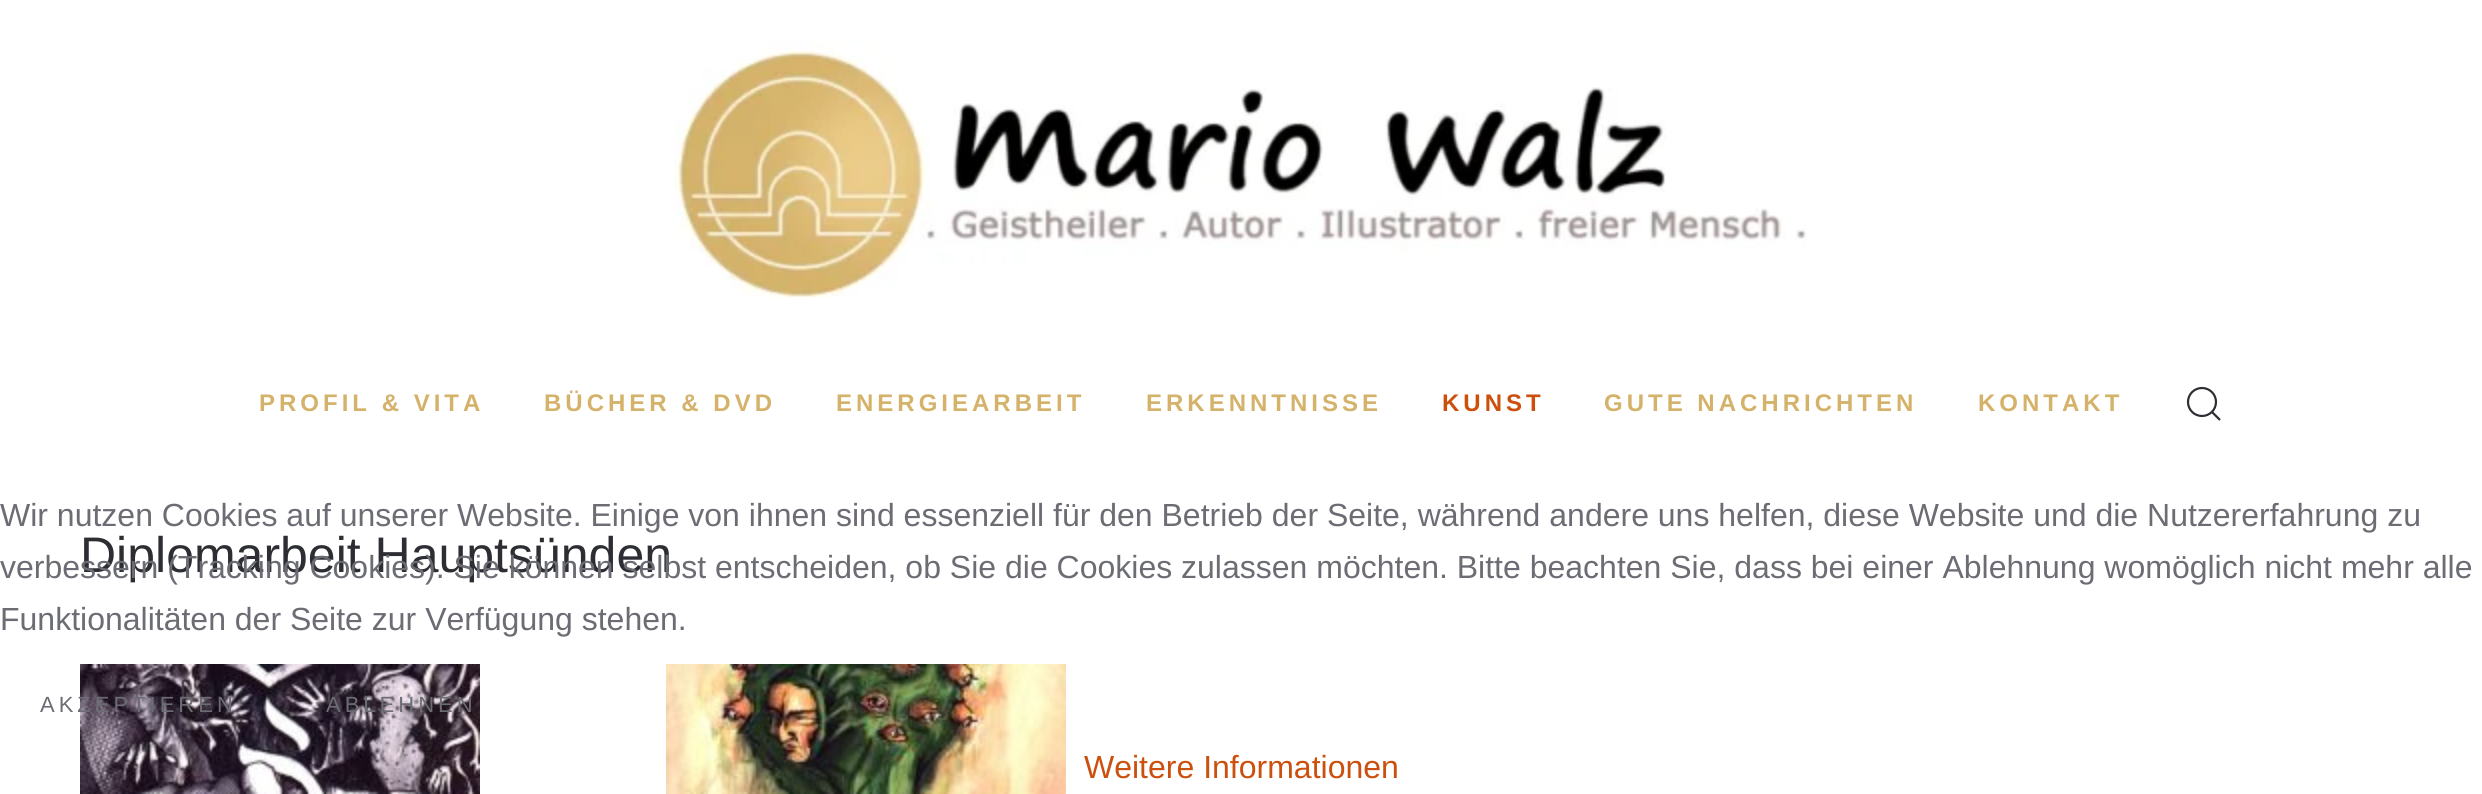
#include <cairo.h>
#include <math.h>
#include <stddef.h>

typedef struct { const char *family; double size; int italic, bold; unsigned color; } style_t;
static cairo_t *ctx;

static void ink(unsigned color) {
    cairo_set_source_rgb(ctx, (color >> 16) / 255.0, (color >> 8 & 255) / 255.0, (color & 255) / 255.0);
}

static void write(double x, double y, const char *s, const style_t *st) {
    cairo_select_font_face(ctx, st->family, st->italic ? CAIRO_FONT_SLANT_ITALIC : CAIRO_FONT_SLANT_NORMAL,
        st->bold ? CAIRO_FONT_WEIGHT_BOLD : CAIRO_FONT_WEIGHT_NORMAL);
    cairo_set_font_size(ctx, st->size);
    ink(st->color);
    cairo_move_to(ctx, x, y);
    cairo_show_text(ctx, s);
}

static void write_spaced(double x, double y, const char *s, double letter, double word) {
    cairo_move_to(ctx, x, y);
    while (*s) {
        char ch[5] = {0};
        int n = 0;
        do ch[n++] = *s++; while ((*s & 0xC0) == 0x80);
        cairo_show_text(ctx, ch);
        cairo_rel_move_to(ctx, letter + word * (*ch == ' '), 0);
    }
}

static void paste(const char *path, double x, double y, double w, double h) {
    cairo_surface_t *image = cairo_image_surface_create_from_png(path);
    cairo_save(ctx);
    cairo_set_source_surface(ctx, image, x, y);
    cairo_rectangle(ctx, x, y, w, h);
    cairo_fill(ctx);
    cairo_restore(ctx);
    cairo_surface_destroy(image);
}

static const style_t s1 = {"Liberation Sans", 50, 0, 0, 0x2d2e33};
static const style_t s2 = {"Liberation Sans", 32, 0, 0, 0x6c6d74};
static const style_t s3 = {"Liberation Sans", 32, 0, 0, 0xcb500d};

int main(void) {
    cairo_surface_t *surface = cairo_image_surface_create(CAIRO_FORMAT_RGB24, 2482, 794);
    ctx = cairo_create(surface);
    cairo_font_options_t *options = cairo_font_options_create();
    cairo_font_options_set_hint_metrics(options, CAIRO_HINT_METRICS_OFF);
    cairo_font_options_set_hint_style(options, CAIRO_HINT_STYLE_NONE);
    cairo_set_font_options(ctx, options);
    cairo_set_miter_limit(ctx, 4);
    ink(0xffffff);
    cairo_paint(ctx);
    paste("pic1.png", 674, 40, 1133, 258);
    cairo_select_font_face(ctx, "Liberation Sans", CAIRO_FONT_SLANT_NORMAL, CAIRO_FONT_WEIGHT_BOLD);
    cairo_set_font_size(ctx, 24);
    ink(0xd4b26a);
    write_spaced(259, 411, "PROFIL & VITA", 4, 0);
    write_spaced(544, 411, "BÜCHER & DVD", 4, 0);
    write_spaced(836, 411, "ENERGIEARBEIT", 4, 0);
    write_spaced(1146, 411, "ERKENNTNISSE", 4, 0);
    ink(0xcb500d);
    write_spaced(1442, 411, "KUNST", 4, 0);
    ink(0xd4b26a);
    write_spaced(1604, 411, "GUTE NACHRICHTEN", 4, 0);
    write_spaced(1978, 411, "KONTAKT", 4, 0);
    cairo_new_path(ctx);
    cairo_arc(ctx, 2202, 402, 14, 0, 2 * M_PI);
    ink(0x2d2e33);
    cairo_set_line_width(ctx, 2.2);
    cairo_stroke(ctx);
    cairo_new_path(ctx);
    cairo_move_to(ctx, 2212, 412);
    cairo_line_to(ctx, 2220, 420);
    cairo_close_path(ctx);
    cairo_stroke(ctx);
    write(80, 572, "Diplomarbeit Hauptsünden", &s1);
    paste("pic2.png", 80, 664, 400, 130);
    paste("pic3.png", 666, 664, 400, 130);
    write(0, 526, "Wir nutzen Cookies auf unserer Website. Einige von ihnen sind essenziell für den Betrieb der Seite, während andere uns helfen, diese Website und die Nutzererfahrung zu", &s2);
    write(0, 578, "verbessern (Tracking Cookies). Sie können selbst entscheiden, ob Sie die Cookies zulassen möchten. Bitte beachten Sie, dass bei einer Ablehnung womöglich nicht mehr alle", &s2);
    write(0, 630, "Funktionalitäten der Seite zur Verfügung stehen.", &s2);
    cairo_set_font_size(ctx, 22);
    write_spaced(40, 712, "AKZEPTIEREN", 4, 0);
    write_spaced(326, 712, "ABLEHNEN", 4, 0);
    write(1084, 778, "Weitere Informationen", &s3);
    cairo_surface_write_to_png(surface, "screenshot.png");
    cairo_font_options_destroy(options);
    cairo_destroy(ctx);
    cairo_surface_destroy(surface);
    return 0;
}
